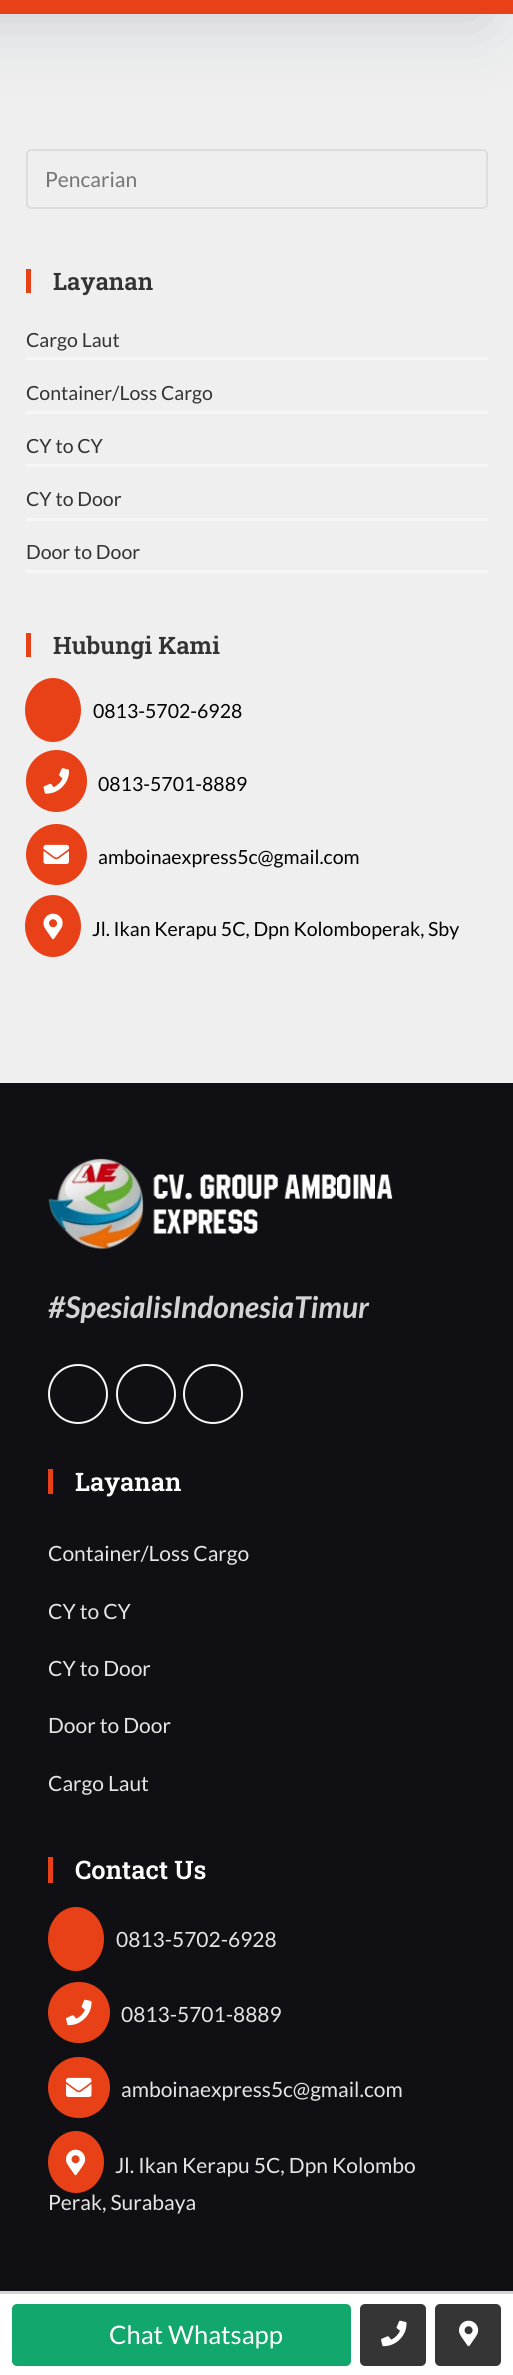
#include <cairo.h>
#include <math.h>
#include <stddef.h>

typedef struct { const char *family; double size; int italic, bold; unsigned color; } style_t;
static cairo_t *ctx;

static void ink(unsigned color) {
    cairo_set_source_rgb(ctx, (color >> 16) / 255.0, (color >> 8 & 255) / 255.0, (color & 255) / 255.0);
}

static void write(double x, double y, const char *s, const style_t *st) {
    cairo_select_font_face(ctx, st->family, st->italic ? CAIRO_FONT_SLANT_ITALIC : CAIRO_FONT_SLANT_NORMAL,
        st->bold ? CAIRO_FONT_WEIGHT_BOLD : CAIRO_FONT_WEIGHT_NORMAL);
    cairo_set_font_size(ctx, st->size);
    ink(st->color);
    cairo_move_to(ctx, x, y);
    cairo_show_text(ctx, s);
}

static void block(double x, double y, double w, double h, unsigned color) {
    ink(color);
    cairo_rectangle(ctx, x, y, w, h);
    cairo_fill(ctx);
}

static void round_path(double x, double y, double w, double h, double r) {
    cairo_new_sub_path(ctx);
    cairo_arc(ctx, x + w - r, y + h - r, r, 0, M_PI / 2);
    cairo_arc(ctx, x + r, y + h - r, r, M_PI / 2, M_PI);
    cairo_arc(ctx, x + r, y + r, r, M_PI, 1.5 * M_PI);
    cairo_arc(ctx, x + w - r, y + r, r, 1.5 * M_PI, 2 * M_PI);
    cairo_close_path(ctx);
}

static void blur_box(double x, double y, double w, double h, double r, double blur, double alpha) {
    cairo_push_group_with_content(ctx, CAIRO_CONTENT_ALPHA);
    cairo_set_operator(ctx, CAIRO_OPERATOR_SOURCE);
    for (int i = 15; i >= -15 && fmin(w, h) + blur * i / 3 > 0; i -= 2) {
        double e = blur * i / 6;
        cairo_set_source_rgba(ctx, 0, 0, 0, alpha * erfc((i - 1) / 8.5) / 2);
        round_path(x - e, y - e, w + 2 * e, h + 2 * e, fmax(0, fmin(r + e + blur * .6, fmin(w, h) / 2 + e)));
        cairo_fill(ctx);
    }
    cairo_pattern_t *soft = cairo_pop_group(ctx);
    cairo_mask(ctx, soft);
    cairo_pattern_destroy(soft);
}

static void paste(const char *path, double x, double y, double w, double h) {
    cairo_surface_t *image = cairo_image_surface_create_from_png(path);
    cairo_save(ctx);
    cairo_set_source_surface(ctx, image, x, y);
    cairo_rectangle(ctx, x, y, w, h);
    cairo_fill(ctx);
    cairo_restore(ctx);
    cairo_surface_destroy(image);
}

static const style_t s1 = {"Lato", 21, 0, 0, 0x757575};
static const style_t s2 = {"Roboto Slab SemiBold", 24, 0, 0, 0x333333};
static const style_t s3 = {"Lato", 19.5, 0, 0, 0x333333};
static const style_t s4 = {"Lato", 19.5, 0, 0, 0x000000};
static const style_t s5 = {"Lato", 30, 1, 1, 0xd3d3d3};
static const style_t s6 = {"Roboto Slab SemiBold", 25.5, 0, 0, 0xffffff};
static const style_t s7 = {"Lato", 21, 0, 0, 0xe5e5e5};
static const style_t s8 = {"Lato", 25.5, 0, 0, 0xffffff};

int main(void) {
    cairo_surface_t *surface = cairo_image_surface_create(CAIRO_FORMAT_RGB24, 513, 2375);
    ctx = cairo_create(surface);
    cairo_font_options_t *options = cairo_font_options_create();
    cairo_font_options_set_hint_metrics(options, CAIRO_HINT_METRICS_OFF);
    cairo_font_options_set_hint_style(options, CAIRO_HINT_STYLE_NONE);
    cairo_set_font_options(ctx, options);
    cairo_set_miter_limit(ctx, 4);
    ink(0xefefef);
    cairo_paint(ctx);
    ink(0x163955);
    blur_box(-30, -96, 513, 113, 0, 37.5, 0.2);
    block(0, 0, 513, 14, 0xe84118);
    round_path(27, 150, 460, 58, 4);
    ink(0xdddddd);
    cairo_stroke(ctx);
    write(45, 187, "Pencarian", &s1);
    block(26, 269, 5, 24, 0xe84118);
    write(53, 290, "Layanan", &s2);
    block(26, 357, 462, 3, 0xf6f6f6);
    write(26, 347, "Cargo Laut", &s3);
    block(26, 411, 462, 3, 0xf6f6f6);
    write(26, 400, "Container/Loss Cargo", &s3);
    block(26, 464, 462, 3, 0xf6f6f6);
    write(26, 453, "CY to CY", &s3);
    block(26, 518, 462, 3, 0xf6f6f6);
    write(26, 506, "CY to Door", &s3);
    block(26, 570, 462, 3, 0xf6f6f6);
    write(26, 559, "Door to Door", &s3);
    block(26, 633, 5, 24, 0xe84118);
    write(53, 654, "Hubungi Kami", &s2);
    ink(0xe84118);
    cairo_new_path(ctx);
    cairo_move_to(ctx, 53, 678);
    cairo_curve_to(ctx, 68.5, 678, 81, 692.5, 81, 710);
    cairo_curve_to(ctx, 81, 727.5, 68.5, 742, 53, 742);
    cairo_curve_to(ctx, 37.5, 742, 25, 727.5, 25, 710);
    cairo_curve_to(ctx, 25, 692.5, 37.5, 678, 53, 678);
    cairo_close_path(ctx);
    cairo_fill(ctx);
    write(93, 718, "0813-5702-6928", &s4);
    ink(0xe84118);
    round_path(26, 750, 61, 62, 30.5);
    cairo_fill(ctx);
    paste("pic1.png", 43, 768, 26, 26);
    write(98, 791, "0813-5701-8889", &s4);
    ink(0xe84118);
    cairo_new_path(ctx);
    cairo_arc(ctx, 56.5, 854.5, 30.5, 0, 2 * M_PI);
    cairo_fill(ctx);
    paste("pic2.png", 43, 844, 26, 20);
    write(98, 864, "amboinaexpress5c@gmail.com", &s4);
    ink(0xe84118);
    cairo_new_path(ctx);
    cairo_move_to(ctx, 53, 895);
    cairo_curve_to(ctx, 68.5, 895, 81, 909, 81, 926);
    cairo_curve_to(ctx, 81, 943, 68.5, 957, 53, 957);
    cairo_curve_to(ctx, 37.5, 957, 25, 943, 25, 926);
    cairo_curve_to(ctx, 25, 909, 37.5, 895, 53, 895);
    cairo_close_path(ctx);
    cairo_fill(ctx);
    paste("pic3.png", 43, 913, 20, 27);
    write(92, 936, "Jl. Ikan Kerapu 5C, Dpn Kolomboperak, Sby", &s4);
    block(0, 1083, 513, 1208, 0x100f13);
    paste("pic4.png", 48, 1158, 345, 92);
    write(48, 1318, "#SpesialisIndonesiaTimur", &s5);
    cairo_new_path(ctx);
    cairo_arc(ctx, 78, 1394, 29, 0, 2 * M_PI);
    ink(0xf7f7f7);
    cairo_stroke(ctx);
    cairo_arc(ctx, 146, 1394, 29, 0, 2 * M_PI);
    cairo_stroke(ctx);
    cairo_arc(ctx, 213, 1394, 29, 0, 2 * M_PI);
    cairo_stroke(ctx);
    block(48, 1469, 5, 25, 0xe84118);
    write(75, 1491, "Layanan", &s6);
    write(48, 1561, "Container/Loss Cargo", &s7);
    write(48, 1619, "CY to CY", &s7);
    write(48, 1676, "CY to Door", &s7);
    write(48, 1733, "Door to Door", &s7);
    write(48, 1791, "Cargo Laut", &s7);
    block(48, 1857, 5, 26, 0xe84118);
    write(75, 1879, "Contact Us", &s6);
    ink(0xe84118);
    cairo_new_path(ctx);
    cairo_move_to(ctx, 76, 1907);
    cairo_curve_to(ctx, 91.5, 1907, 104, 1921.5, 104, 1939);
    cairo_curve_to(ctx, 104, 1956.5, 91.5, 1971, 76, 1971);
    cairo_curve_to(ctx, 60.5, 1971, 48, 1956.5, 48, 1939);
    cairo_curve_to(ctx, 48, 1921.5, 60.5, 1907, 76, 1907);
    cairo_close_path(ctx);
    cairo_fill(ctx);
    write(116, 1947, "0813-5702-6928", &s7);
    ink(0xe84118);
    round_path(48, 1982, 62, 61, 30.5);
    cairo_fill(ctx);
    paste("pic5.png", 66, 1999, 26, 27);
    write(121, 2022, "0813-5701-8889", &s7);
    ink(0xe84118);
    round_path(48, 2057, 62, 61, 30.5);
    cairo_fill(ctx);
    paste("pic6.png", 66, 2077, 26, 20);
    write(121, 2097, "amboinaexpress5c@gmail.com", &s7);
    ink(0xe84118);
    cairo_new_path(ctx);
    cairo_move_to(ctx, 76, 2131);
    cairo_curve_to(ctx, 91.5, 2131, 104, 2145, 104, 2162);
    cairo_curve_to(ctx, 104, 2179, 91.5, 2193, 76, 2193);
    cairo_curve_to(ctx, 60.5, 2193, 48, 2179, 48, 2162);
    cairo_curve_to(ctx, 48, 2145, 60.5, 2131, 76, 2131);
    cairo_close_path(ctx);
    cairo_fill(ctx);
    paste("pic7.png", 66, 2149, 20, 27);
    write(115, 2173, "Jl. Ikan Kerapu 5C, Dpn Kolombo", &s7);
    write(48, 2210, "Perak, Surabaya", &s7);
    block(0, 2294, 513, 81, 0xffffff);
    block(0, 2291, 513, 3, 0xd4d4d4);
    ink(0x12a76d);
    round_path(12, 2304, 339, 62, 5);
    cairo_fill(ctx);
    write(109, 2344, "Chat Whatsapp", &s8);
    ink(0x353535);
    round_path(360, 2304, 66, 62, 5);
    cairo_fill(ctx);
    paste("pic8.png", 381, 2320, 26, 27);
    round_path(435, 2304, 66, 62, 5);
    cairo_fill(ctx);
    paste("pic9.png", 459, 2320, 20, 27);
    cairo_surface_write_to_png(surface, "screenshot.png");
    cairo_font_options_destroy(options);
    cairo_destroy(ctx);
    cairo_surface_destroy(surface);
    return 0;
}
